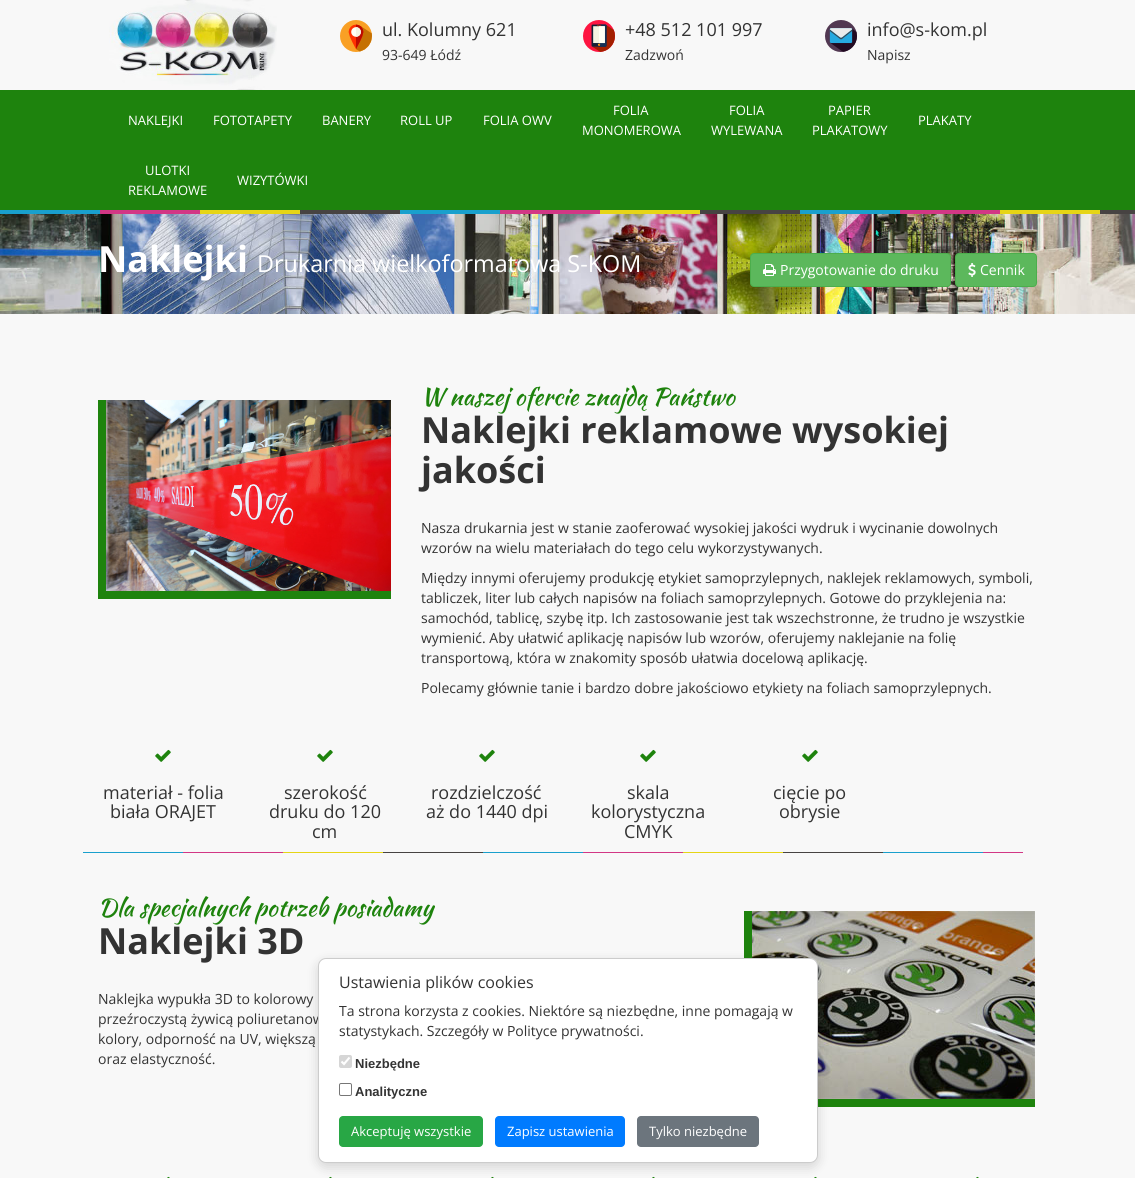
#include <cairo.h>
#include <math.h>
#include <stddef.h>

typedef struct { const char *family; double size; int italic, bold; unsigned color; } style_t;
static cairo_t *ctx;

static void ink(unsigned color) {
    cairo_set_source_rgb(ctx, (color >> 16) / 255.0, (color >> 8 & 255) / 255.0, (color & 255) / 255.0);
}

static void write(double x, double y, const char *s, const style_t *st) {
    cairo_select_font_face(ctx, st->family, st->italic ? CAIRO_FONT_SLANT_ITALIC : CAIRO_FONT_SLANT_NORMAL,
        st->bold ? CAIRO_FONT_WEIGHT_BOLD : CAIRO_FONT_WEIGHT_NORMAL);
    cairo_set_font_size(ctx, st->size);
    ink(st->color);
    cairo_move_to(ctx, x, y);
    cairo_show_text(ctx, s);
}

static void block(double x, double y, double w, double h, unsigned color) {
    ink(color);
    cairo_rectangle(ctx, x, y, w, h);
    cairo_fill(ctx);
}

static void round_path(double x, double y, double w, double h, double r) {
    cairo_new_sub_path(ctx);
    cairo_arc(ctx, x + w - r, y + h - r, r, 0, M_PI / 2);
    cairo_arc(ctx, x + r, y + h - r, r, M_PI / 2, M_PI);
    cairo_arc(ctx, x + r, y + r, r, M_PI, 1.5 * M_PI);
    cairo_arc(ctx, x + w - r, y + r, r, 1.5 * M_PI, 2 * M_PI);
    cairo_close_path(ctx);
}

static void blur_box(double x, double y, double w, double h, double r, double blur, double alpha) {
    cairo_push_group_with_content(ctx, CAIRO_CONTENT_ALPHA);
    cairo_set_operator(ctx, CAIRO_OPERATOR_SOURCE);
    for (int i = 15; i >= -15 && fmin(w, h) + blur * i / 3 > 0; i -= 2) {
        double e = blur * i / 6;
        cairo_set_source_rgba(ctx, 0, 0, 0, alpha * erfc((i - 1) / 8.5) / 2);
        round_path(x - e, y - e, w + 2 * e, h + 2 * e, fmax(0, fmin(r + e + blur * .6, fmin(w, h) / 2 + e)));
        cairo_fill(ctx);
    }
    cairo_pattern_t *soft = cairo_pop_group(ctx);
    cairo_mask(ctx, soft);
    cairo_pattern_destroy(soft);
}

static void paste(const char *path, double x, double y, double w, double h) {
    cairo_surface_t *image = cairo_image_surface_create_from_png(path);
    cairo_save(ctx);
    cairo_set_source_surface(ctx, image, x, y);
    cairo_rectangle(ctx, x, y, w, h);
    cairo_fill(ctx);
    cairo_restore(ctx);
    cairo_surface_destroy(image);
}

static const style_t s1 = {"Open Sans", 18, 0, 0, 0x333333};
static const style_t s2 = {"Open Sans", 14, 0, 0, 0x333333};
static const style_t s3 = {"Open Sans", 13, 0, 0, 0xffffff};
static const style_t s4 = {"Open Sans", 36, 0, 1, 0xffffff};
static const style_t s5 = {"Open Sans", 23.4, 0, 0, 0xffffff};
static const style_t s6 = {"Open Sans", 14, 0, 0, 0xffffff};
static const style_t s7 = {"Kaushan Script", 24, 0, 0, 0x1e830d};
static const style_t s8 = {"Open Sans", 36, 0, 1, 0x333333};
static const style_t s9 = {"Open Sans", 16, 0, 0, 0x333333};
static const style_t s10 = {"Liberation Sans", 13, 0, 1, 0x333333};

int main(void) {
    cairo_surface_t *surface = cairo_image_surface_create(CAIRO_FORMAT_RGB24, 1135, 1178);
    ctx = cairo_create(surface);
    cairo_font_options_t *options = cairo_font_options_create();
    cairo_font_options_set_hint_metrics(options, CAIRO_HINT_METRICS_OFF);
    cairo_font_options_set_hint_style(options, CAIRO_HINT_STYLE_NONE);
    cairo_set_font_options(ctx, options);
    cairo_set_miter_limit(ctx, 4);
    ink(0xf8f8f8);
    cairo_paint(ctx);
    paste("pic1.png", 109, 0, 168, 90);
    paste("pic2.png", 340, 20, 32, 32);
    write(382, 36, "ul. Kolumny 621", &s1);
    write(382, 60, "93-649 Łódź", &s2);
    paste("pic3.png", 583, 20, 32, 32);
    write(625, 36, "+48 512 101 997", &s1);
    write(625, 60, "Zadzwoń", &s2);
    paste("pic4.png", 825, 20, 32, 32);
    write(867, 36, "info@s-kom.pl", &s1);
    write(867, 60, "Napisz", &s2);
    block(0, 90, 1135, 120, 0x1e830d);
    write(128, 125, "NAKLEJKI", &s3);
    write(213, 125, "FOTOTAPETY", &s3);
    write(322, 125, "BANERY", &s3);
    write(400, 125, "ROLL UP", &s3);
    write(483, 125, "FOLIA OWV", &s3);
    write(613, 115, "FOLIA", &s3);
    write(582, 135, "MONOMEROWA", &s3);
    write(729, 115, "FOLIA", &s3);
    write(711, 135, "WYLEWANA", &s3);
    write(828, 115, "PAPIER", &s3);
    write(812, 135, "PLAKATOWY", &s3);
    write(918, 125, "PLAKATY", &s3);
    write(145, 175, "ULOTKI", &s3);
    write(128, 195, "REKLAMOWE", &s3);
    write(237, 185, "WIZYTÓWKI", &s3);
    paste("pic5.png", 0, 210, 1135, 4);
    paste("pic6.png", 0, 214, 1135, 100);
    write(98, 272, "Naklejki", &s4);
    write(257, 272, "Drukarnia wielkoformatowa S-KOM", &s5);
    ink(0x5cb85c);
    round_path(750.5, 253.5, 200, 33, 3.5);
    cairo_fill_preserve(ctx);
    ink(0x4cae4c);
    cairo_set_line_width(ctx, 1);
    cairo_stroke(ctx);
    paste("pic7.png", 763, 264, 13, 12);
    write(780, 275, "Przygotowanie do druku", &s6);
    ink(0x5cb85c);
    round_path(955.5, 253.5, 81, 33, 3.5);
    cairo_fill_preserve(ctx);
    ink(0x4cae4c);
    cairo_stroke(ctx);
    paste("pic8.png", 968, 263, 8, 14);
    write(980, 275, "Cennik", &s6);
    block(98, 591, 293, 8, 0x1e830d);
    block(98, 400, 8, 199, 0x1e830d);
    paste("pic9.png", 106, 400, 285, 191);
    write(421, 405, "W naszej ofercie znajdą Państwo", &s7);
    write(421, 443, "Naklejki reklamowe wysokiej", &s8);
    write(421, 483, "jakości", &s8);
    write(421, 533, "Nasza drukarnia jest w stanie zaoferować wysokiej jakości wydruk i wycinanie dowolnych", &s2);
    write(421, 553, "wzorów na wielu materiałach do tego celu wykorzystywanych.", &s2);
    write(421, 583, "Między innymi oferujemy produkcję etykiet samoprzylepnych, naklejek reklamowych, symboli,", &s2);
    write(421, 603, "tabliczek, liter lub całych napisów na foliach samoprzylepnych. Gotowe do przyklejenia na:", &s2);
    write(421, 623, "samochód, tablicę, szybę itp. Ich zastosowanie jest tak wszechstronne, że trudno je wszystkie", &s2);
    write(421, 643, "wymienić. Aby ułatwić aplikację napisów lub wzorów, oferujemy naklejanie na folię", &s2);
    write(421, 663, "transportową, która w znakomity sposób ułatwia docelową aplikację.", &s2);
    write(421, 693, "Polecamy głównie tanie i bardzo dobre jakościowo etykiety na foliach samoprzylepnych.", &s2);
    paste("pic10.png", 155, 749, 16, 13);
    write(103, 799, "materiał - folia", &s1);
    write(110, 818, "biała ORAJET", &s1);
    paste("pic10.png", 317, 749, 16, 13);
    write(284, 799, "szerokość", &s1);
    write(269, 818, "druku do 120", &s1);
    write(312, 838, "cm", &s1);
    paste("pic10.png", 479, 749, 16, 13);
    write(431, 799, "rozdzielczość", &s1);
    write(426, 818, "aż do 1440 dpi", &s1);
    paste("pic10.png", 640, 749, 16, 13);
    write(627, 799, "skala", &s1);
    write(591, 818, "kolorystyczna", &s1);
    write(624, 838, "CMYK", &s1);
    paste("pic10.png", 802, 749, 16, 13);
    write(773, 799, "cięcie po", &s1);
    write(779, 818, "obrysie", &s1);
    paste("pic11.png", 83, 852, 940, 1);
    write(98, 916, "Dla specjalnych potrzeb posiadamy", &s7);
    write(98, 954, "Naklejki 3D", &s8);
    write(98, 1004, "Naklejka wypukła 3D to kolorowy", &s2);
    write(98, 1024, "przeźroczystą żywicą poliuretanow", &s2);
    write(98, 1044, "kolory, odporność na UV, większą", &s2);
    write(98, 1064, "oraz elastyczność.", &s2);
    block(818, 1099, 217, 8, 0x1e830d);
    block(744, 911, 8, 47, 0x1e830d);
    paste("pic12.png", 752, 911, 283, 188);
    paste("pic13.png", 167, 1176, 3, 2);
    paste("pic13.png", 329, 1176, 3, 2);
    paste("pic13.png", 491, 1176, 3, 2);
    paste("pic13.png", 652, 1176, 3, 2);
    paste("pic13.png", 814, 1176, 3, 2);
    paste("pic13.png", 976, 1176, 3, 2);
    ink(0x000000);
    blur_box(318, 962, 500, 205, 8, 6, 0.15);
    ink(0xffffff);
    round_path(318.5, 958.5, 499, 204, 7.5);
    cairo_fill_preserve(ctx);
    ink(0xcccccc);
    cairo_stroke(ctx);
    write(339, 988, "Ustawienia plików cookies", &s9);
    write(339, 1016, "Ta strona korzysta z cookies. Niektóre są niezbędne, inne pomagają w", &s2);
    write(339, 1036, "statystykach. Szczegóły w Polityce prywatności.", &s2);
    ink(0xd6d6d6);
    round_path(339, 1055, 13, 13, 2);
    cairo_fill(ctx);
    cairo_new_path(ctx);
    cairo_move_to(ctx, 341.5, 1061.5);
    cairo_line_to(ctx, 344, 1064);
    cairo_line_to(ctx, 349.5, 1057.5);
    ink(0xffffff);
    cairo_set_line_width(ctx, 2.1);
    cairo_stroke(ctx);
    write(355, 1068, "Niezbędne", &s10);
    round_path(339.5, 1083.5, 12, 12, 1.5);
    ink(0x767676);
    cairo_set_line_width(ctx, 1);
    cairo_stroke(ctx);
    write(355, 1096, "Analityczne", &s10);
    ink(0x28a745);
    round_path(339, 1116, 144, 31, 4);
    cairo_fill(ctx);
    write(351, 1136, "Akceptuję wszystkie", &s3);
    ink(0x007bff);
    round_path(495, 1116, 130, 31, 4);
    cairo_fill(ctx);
    write(507, 1136, "Zapisz ustawienia", &s3);
    ink(0x6c757d);
    round_path(637, 1116, 122, 31, 4);
    cairo_fill(ctx);
    write(649, 1136, "Tylko niezbędne", &s3);
    cairo_surface_write_to_png(surface, "screenshot.png");
    cairo_font_options_destroy(options);
    cairo_destroy(ctx);
    cairo_surface_destroy(surface);
    return 0;
}
